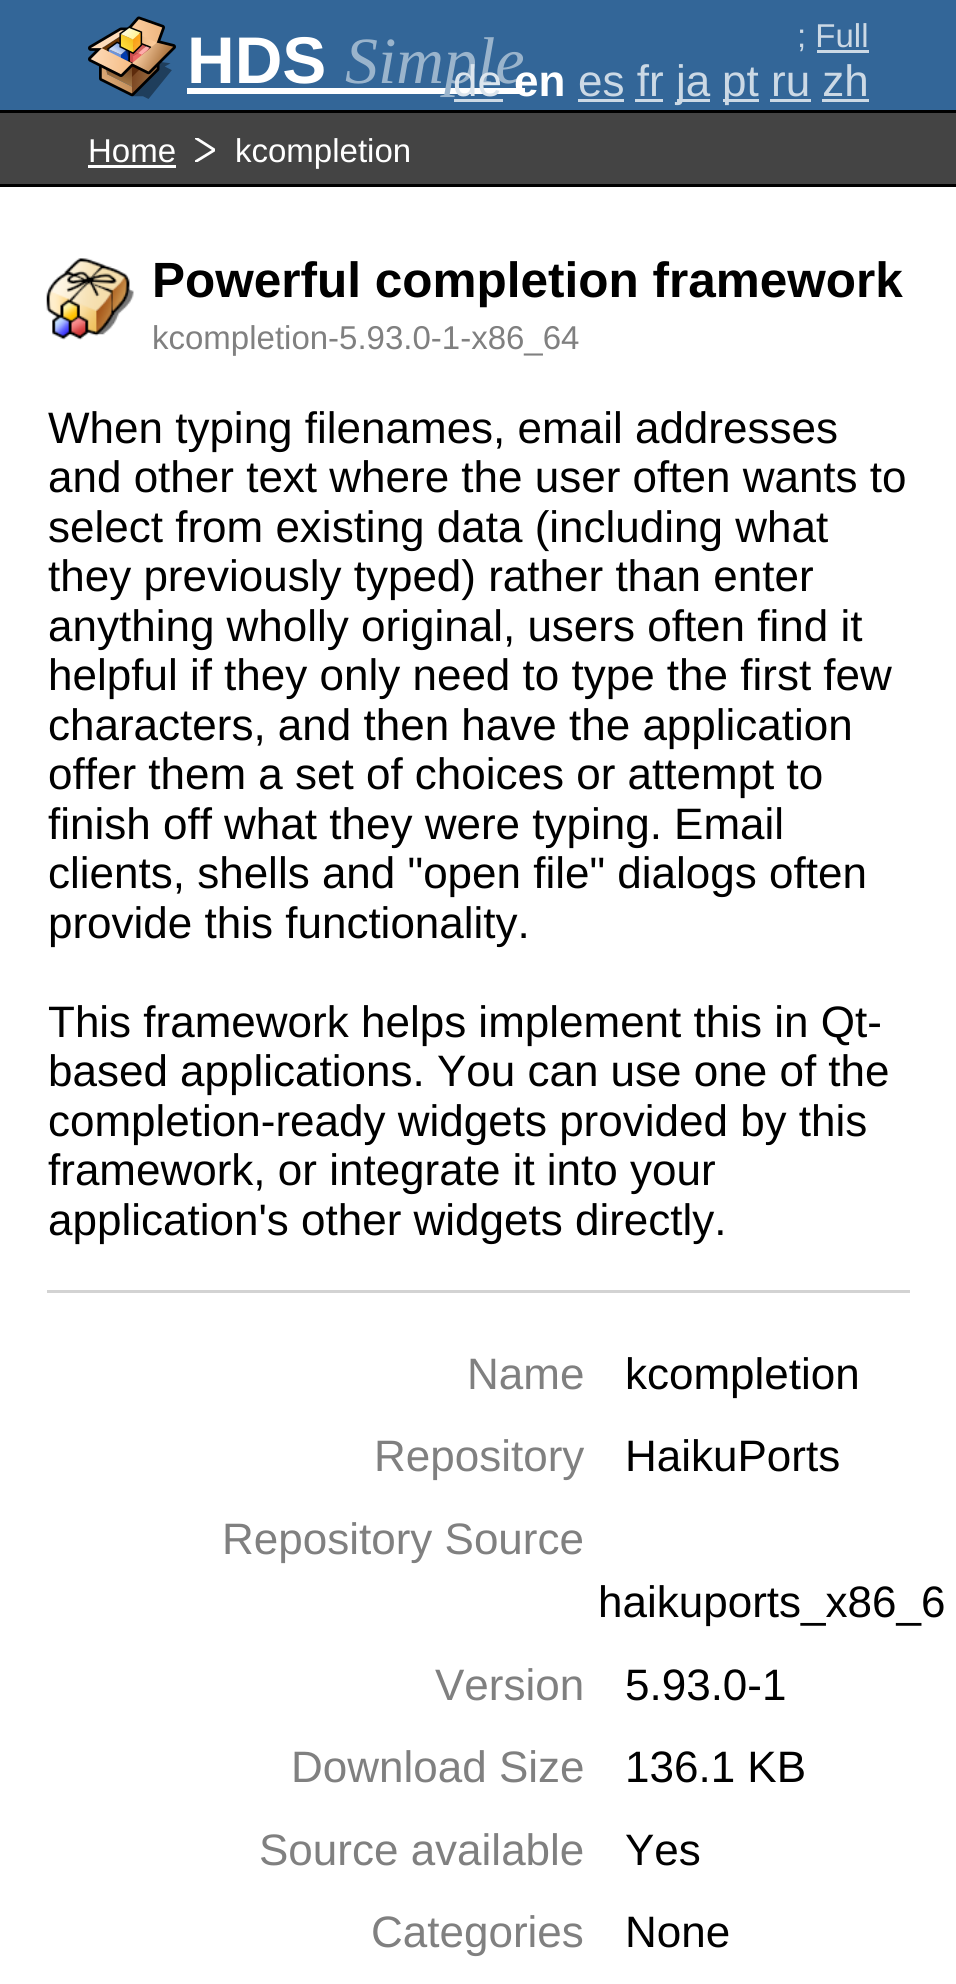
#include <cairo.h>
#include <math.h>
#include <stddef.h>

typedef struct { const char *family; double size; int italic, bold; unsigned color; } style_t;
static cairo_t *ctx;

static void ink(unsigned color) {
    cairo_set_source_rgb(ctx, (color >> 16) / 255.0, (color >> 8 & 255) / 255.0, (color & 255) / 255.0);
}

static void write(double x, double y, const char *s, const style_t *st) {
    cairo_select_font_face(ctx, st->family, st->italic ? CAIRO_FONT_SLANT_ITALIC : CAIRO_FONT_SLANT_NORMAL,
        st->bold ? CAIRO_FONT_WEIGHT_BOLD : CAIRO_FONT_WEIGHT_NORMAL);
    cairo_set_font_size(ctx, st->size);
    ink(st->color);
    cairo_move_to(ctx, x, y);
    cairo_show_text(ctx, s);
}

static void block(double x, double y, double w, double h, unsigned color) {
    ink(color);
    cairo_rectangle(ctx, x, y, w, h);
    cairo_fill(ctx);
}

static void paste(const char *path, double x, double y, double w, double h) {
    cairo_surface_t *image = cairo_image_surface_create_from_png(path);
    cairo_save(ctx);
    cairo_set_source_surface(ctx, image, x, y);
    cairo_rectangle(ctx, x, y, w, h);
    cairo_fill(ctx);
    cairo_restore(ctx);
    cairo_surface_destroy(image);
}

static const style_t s1 = {"Liberation Sans", 66, 0, 1, 0xffffff};
static const style_t s2 = {"Liberation Serif", 66, 1, 0, 0x9ab4cc};
static const style_t s3 = {"Liberation Sans", 33, 0, 0, 0xccd9e5};
static const style_t s4 = {"Liberation Sans", 44, 0, 0, 0xdce5ed};
static const style_t s5 = {"Liberation Sans", 44, 0, 1, 0xffffff};
static const style_t s6 = {"Liberation Sans", 44, 0, 0, 0xccd9e5};
static const style_t s7 = {"Liberation Sans", 33, 0, 0, 0xffffff};
static const style_t s8 = {"Liberation Sans", 49.5, 0, 1, 0x000000};
static const style_t s9 = {"Liberation Sans", 33, 0, 0, 0x808080};
static const style_t s10 = {"Liberation Sans", 44, 0, 0, 0x000000};
static const style_t s11 = {"Liberation Sans", 44, 0, 0, 0x808080};

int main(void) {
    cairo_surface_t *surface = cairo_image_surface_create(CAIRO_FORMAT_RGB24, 956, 1984);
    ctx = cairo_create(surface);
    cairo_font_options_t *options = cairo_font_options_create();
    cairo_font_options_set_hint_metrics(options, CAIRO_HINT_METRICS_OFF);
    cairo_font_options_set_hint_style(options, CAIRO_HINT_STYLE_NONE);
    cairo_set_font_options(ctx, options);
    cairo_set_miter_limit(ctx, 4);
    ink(0xffffff);
    cairo_paint(ctx);
    block(0, 0, 956, 110, 0x336698);
    block(0, 110, 956, 3, 0x000000);
    paste("pic1.png", 88, 16, 88, 83);
    write(187, 83, "HDS", &s1);
    block(187, 88, 338, 6, 0xffffff);
    write(345, 83, "Simple", &s2);
    write(797, 47, "; Full", &s3);
    block(817, 50, 52, 3, 0xccd9e5);
    write(453, 96, "de", &s4);
    block(454, 99, 49, 3, 0xccd9e5);
    write(514, 96, "en", &s5);
    write(578, 96, "es fr", &s6);
    block(578, 99, 46, 3, 0xccd9e5);
    block(635, 99, 28, 3, 0xccd9e5);
    block(677, 99, 33, 3, 0xccd9e5);
    write(676, 96, "ja", &s6);
    block(723, 99, 36, 3, 0xccd9e5);
    write(722, 96, "pt", &s6);
    block(770, 99, 41, 3, 0xccd9e5);
    write(771, 96, "ru zh", &s6);
    block(822, 99, 47, 3, 0xccd9e5);
    block(0, 113, 956, 71, 0x444444);
    block(0, 184, 956, 3, 0x000000);
    write(88, 162, "Home", &s7);
    block(88, 165, 88, 3, 0xffffff);
    write(235, 162, "kcompletion", &s7);
    cairo_save(ctx);
    cairo_rectangle(ctx, 195, 138, 20, 24);
    cairo_clip(ctx);
    cairo_new_path(ctx);
    cairo_move_to(ctx, 195, 162);
    cairo_line_to(ctx, 214.5, 150);
    cairo_line_to(ctx, 195, 137.5);
    cairo_set_line_width(ctx, 2.8);
    cairo_stroke(ctx);
    cairo_restore(ctx);
    paste("pic2.png", 46, 258, 88, 82);
    write(152, 297, "Powerful completion framework", &s8);
    write(152, 349, "kcompletion-5.93.0-1-x86_64", &s9);
    write(48, 443, "When typing filenames, email addresses", &s10);
    write(48, 492, "and other text where the user often wants to", &s10);
    write(48, 542, "select from existing data (including what", &s10);
    write(48, 591, "they previously typed) rather than enter", &s10);
    write(48, 641, "anything wholly original, users often find it", &s10);
    write(48, 690, "helpful if they only need to type the first few", &s10);
    write(48, 740, "characters, and then have the application", &s10);
    write(48, 789, "offer them a set of choices or attempt to", &s10);
    write(48, 839, "finish off what they were typing. Email", &s10);
    write(48, 888, "clients, shells and \"open file\" dialogs often", &s10);
    write(48, 938, "provide this functionality.", &s10);
    write(48, 1037, "This framework helps implement this in Qt-", &s10);
    write(48, 1086, "based applications. You can use one of the", &s10);
    write(48, 1136, "completion-ready widgets provided by this", &s10);
    write(48, 1185, "framework, or integrate it into your", &s10);
    write(48, 1235, "application's other widgets directly.", &s10);
    block(47, 1290, 863, 3, 0xd3d3d3);
    write(467, 1389, "Name", &s11);
    write(625, 1389, "kcompletion", &s10);
    write(374, 1471, "Repository", &s11);
    write(625, 1471, "HaikuPorts", &s10);
    write(222, 1554, "Repository Source", &s11);
    write(598, 1617, "haikuports_x86_6", &s10);
    write(435, 1700, "Version", &s11);
    write(625, 1700, "5.93.0-1", &s10);
    write(291, 1782, "Download Size", &s11);
    write(625, 1782, "136.1 KB", &s10);
    write(259, 1865, "Source available", &s11);
    write(625, 1865, "Yes", &s10);
    write(371, 1947, "Categories", &s11);
    write(625, 1947, "None", &s10);
    cairo_surface_write_to_png(surface, "screenshot.png");
    cairo_font_options_destroy(options);
    cairo_destroy(ctx);
    cairo_surface_destroy(surface);
    return 0;
}
